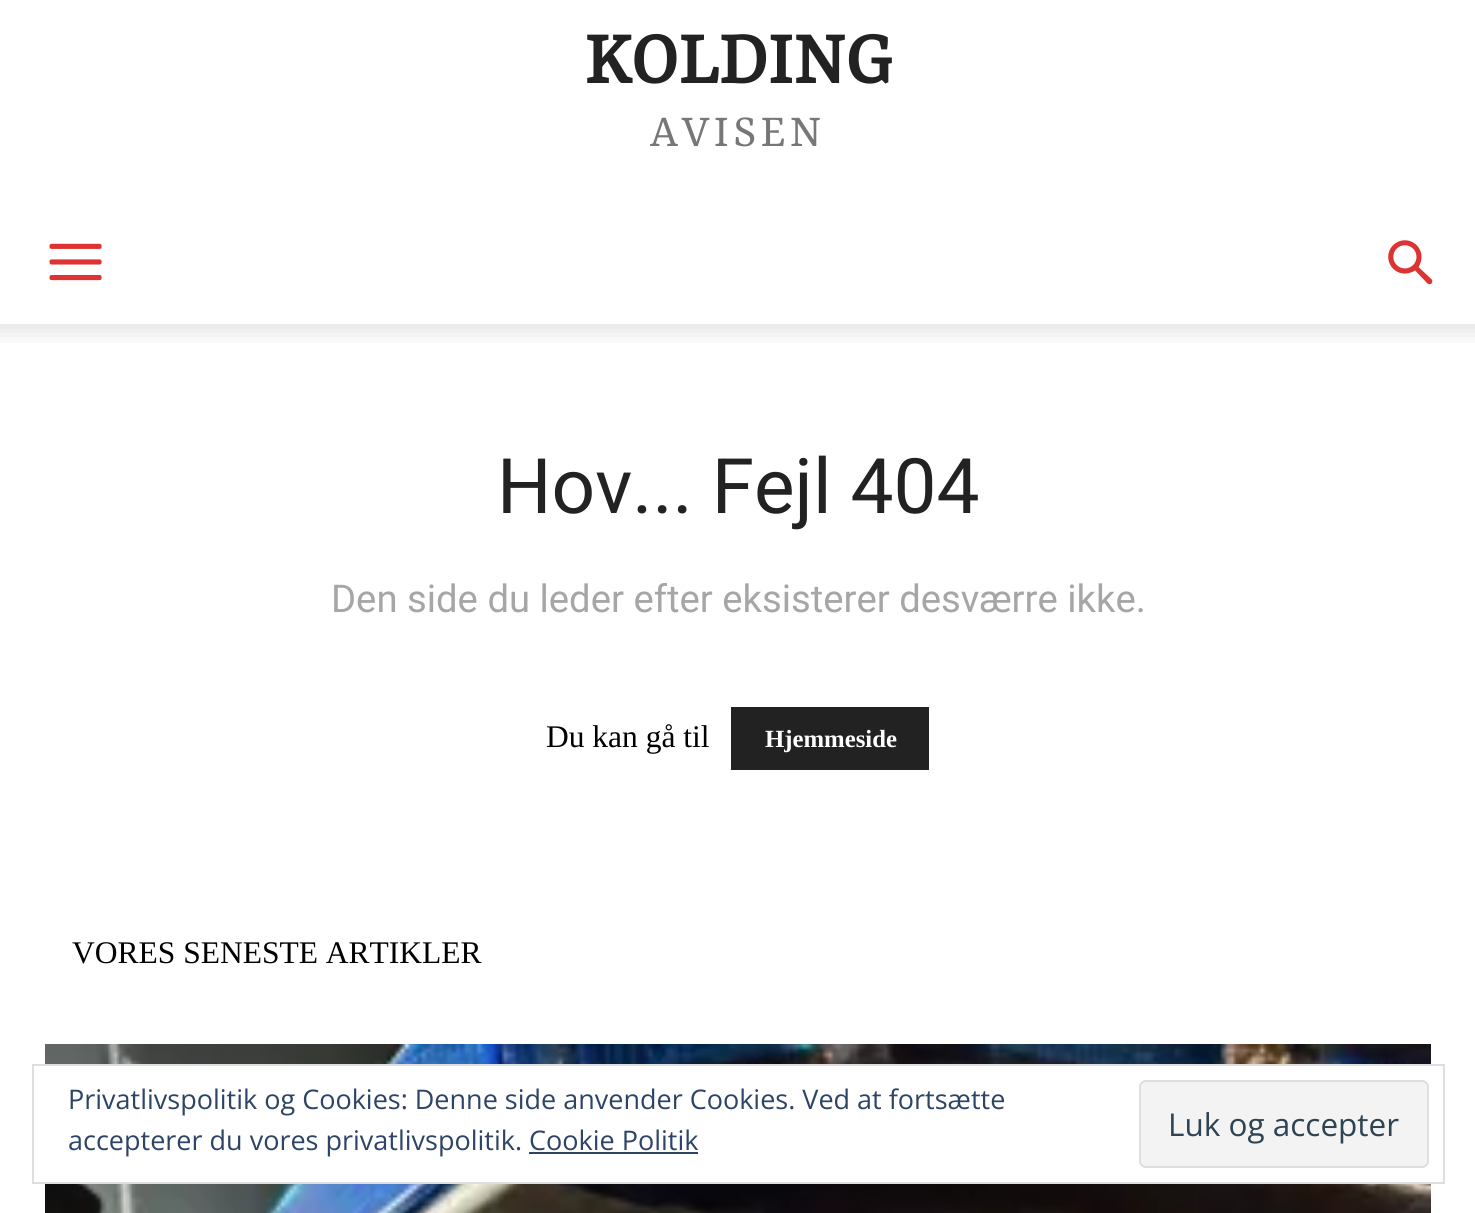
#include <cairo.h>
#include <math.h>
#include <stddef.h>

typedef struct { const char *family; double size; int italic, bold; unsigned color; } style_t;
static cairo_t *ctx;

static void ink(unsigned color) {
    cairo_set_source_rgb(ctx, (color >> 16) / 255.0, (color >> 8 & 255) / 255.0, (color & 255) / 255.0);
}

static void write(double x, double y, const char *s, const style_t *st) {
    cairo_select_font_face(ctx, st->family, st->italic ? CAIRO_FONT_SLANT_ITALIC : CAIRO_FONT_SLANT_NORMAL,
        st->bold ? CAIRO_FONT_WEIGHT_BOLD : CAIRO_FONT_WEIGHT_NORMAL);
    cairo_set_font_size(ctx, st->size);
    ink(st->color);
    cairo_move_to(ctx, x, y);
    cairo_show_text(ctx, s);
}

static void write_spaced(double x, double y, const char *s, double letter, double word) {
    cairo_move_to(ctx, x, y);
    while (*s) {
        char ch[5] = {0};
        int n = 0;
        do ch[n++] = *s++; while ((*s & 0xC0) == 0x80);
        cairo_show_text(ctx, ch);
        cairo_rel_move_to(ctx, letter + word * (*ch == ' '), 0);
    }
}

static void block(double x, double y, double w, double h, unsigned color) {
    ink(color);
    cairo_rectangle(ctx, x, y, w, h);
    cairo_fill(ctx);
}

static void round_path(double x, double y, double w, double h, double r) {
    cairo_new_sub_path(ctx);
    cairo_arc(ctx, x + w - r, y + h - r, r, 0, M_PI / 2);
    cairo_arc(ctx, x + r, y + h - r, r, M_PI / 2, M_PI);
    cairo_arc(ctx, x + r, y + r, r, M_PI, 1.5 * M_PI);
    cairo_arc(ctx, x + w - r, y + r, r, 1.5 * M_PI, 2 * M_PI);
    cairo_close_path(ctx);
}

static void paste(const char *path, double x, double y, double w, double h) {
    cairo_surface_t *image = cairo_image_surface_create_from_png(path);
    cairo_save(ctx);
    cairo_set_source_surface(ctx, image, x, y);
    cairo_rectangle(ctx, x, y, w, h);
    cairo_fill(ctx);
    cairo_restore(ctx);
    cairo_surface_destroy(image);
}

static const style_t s1 = {"Yrsa", 81, 0, 1, 0x222222};
static const style_t s2 = {"Roboto", 76.5, 0, 0, 0x222222};
static const style_t s3 = {"Roboto", 38.25, 0, 0, 0xa6a6a6};
static const style_t s4 = {"Liberation Serif", 31.5, 0, 0, 0x000000};
static const style_t s5 = {"Liberation Serif", 24.75, 0, 1, 0xffffff};
static const style_t s6 = {"Open Sans", 27, 0, 0, 0x2e4467};
static const style_t s7 = {"Open Sans", 31.5, 0, 0, 0x2e4453};

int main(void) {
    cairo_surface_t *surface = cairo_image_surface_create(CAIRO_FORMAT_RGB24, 1475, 1213);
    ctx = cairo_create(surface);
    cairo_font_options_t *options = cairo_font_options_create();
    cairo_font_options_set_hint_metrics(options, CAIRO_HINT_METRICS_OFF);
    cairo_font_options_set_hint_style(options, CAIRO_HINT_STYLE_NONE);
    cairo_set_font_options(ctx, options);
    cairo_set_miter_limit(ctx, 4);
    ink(0xffffff);
    cairo_paint(ctx);
    write(584, 83, "KOLDING", &s1);
    cairo_select_font_face(ctx, "Yrsa", CAIRO_FONT_SLANT_NORMAL, CAIRO_FONT_WEIGHT_NORMAL);
    cairo_set_font_size(ctx, 49.5);
    ink(0x777777);
    write_spaced(650, 146, "AVISEN", 4, 0);
    paste("pic1.png", 49, 243, 53, 38);
    paste("pic2.png", 1388, 240, 45, 45);
    paste("pic3.png", 0, 324, 1475, 19);
    write(497, 513, "Hov... Fejl 404", &s2);
    write(331, 612, "Den side du leder efter eksisterer desværre ikke.", &s3);
    write(546, 747, "Du kan gå til", &s4);
    block(731, 707, 198, 63, 0x222222);
    write(765, 747, "Hjemmeside", &s5);
    write(72, 963, "VORES SENESTE ARTIKLER", &s4);
    paste("pic4.png", 45, 1044, 1386, 169);
    block(45, 1066, 1386, 116, 0xffffff);
    cairo_rectangle(ctx, 33, 1065, 1411, 118);
    ink(0xdedede);
    cairo_stroke(ctx);
    write(68, 1109, "Privatlivspolitik og Cookies: Denne side anvender Cookies. Ved at fortsætte", &s6);
    write(68, 1150, "accepterer du vores privatlivspolitik. Cookie Politik", &s6);
    ink(0xf3f3f3);
    round_path(1140, 1081, 288, 86, 6);
    cairo_fill_preserve(ctx);
    ink(0xdedede);
    cairo_stroke(ctx);
    write(1168, 1136, "Luk og accepter", &s7);
    block(529, 1152, 169, 2, 0x2e4467);
    cairo_surface_write_to_png(surface, "screenshot.png");
    cairo_font_options_destroy(options);
    cairo_destroy(ctx);
    cairo_surface_destroy(surface);
    return 0;
}
